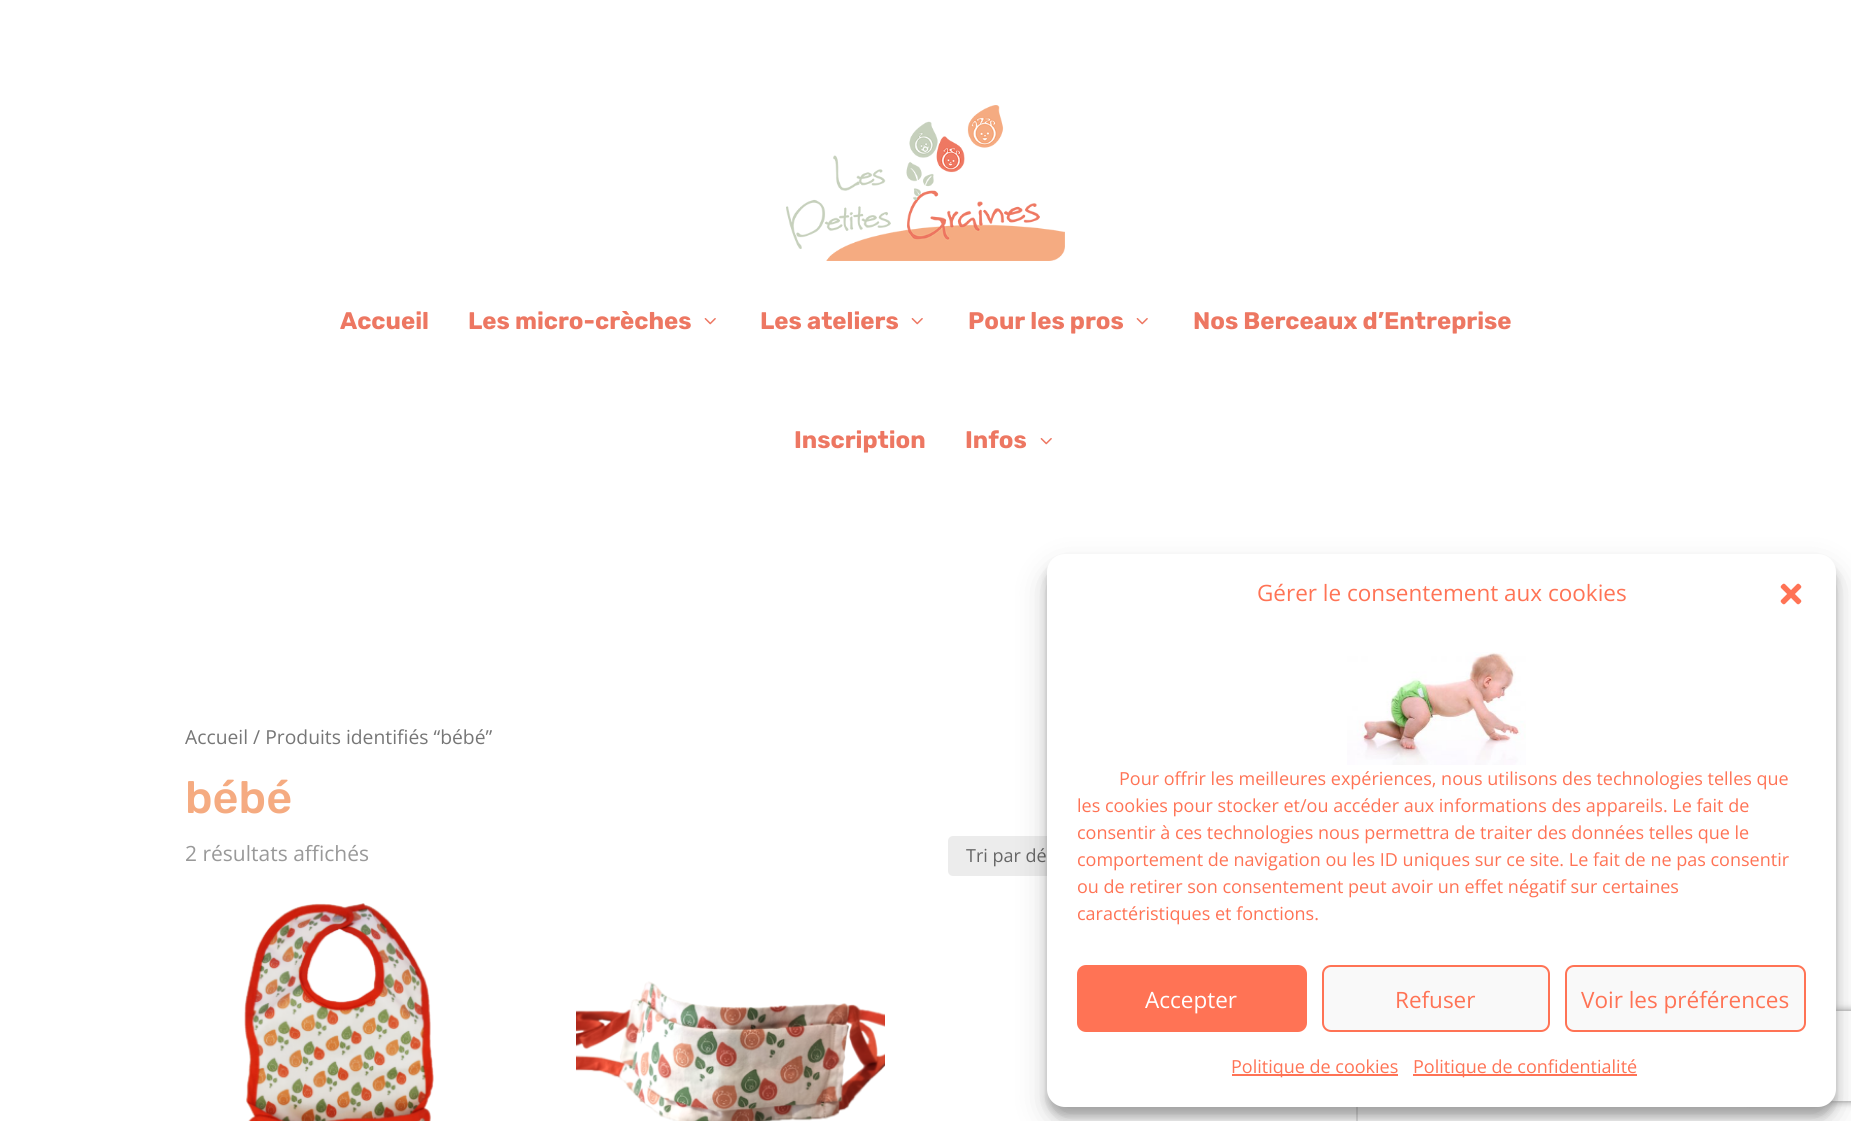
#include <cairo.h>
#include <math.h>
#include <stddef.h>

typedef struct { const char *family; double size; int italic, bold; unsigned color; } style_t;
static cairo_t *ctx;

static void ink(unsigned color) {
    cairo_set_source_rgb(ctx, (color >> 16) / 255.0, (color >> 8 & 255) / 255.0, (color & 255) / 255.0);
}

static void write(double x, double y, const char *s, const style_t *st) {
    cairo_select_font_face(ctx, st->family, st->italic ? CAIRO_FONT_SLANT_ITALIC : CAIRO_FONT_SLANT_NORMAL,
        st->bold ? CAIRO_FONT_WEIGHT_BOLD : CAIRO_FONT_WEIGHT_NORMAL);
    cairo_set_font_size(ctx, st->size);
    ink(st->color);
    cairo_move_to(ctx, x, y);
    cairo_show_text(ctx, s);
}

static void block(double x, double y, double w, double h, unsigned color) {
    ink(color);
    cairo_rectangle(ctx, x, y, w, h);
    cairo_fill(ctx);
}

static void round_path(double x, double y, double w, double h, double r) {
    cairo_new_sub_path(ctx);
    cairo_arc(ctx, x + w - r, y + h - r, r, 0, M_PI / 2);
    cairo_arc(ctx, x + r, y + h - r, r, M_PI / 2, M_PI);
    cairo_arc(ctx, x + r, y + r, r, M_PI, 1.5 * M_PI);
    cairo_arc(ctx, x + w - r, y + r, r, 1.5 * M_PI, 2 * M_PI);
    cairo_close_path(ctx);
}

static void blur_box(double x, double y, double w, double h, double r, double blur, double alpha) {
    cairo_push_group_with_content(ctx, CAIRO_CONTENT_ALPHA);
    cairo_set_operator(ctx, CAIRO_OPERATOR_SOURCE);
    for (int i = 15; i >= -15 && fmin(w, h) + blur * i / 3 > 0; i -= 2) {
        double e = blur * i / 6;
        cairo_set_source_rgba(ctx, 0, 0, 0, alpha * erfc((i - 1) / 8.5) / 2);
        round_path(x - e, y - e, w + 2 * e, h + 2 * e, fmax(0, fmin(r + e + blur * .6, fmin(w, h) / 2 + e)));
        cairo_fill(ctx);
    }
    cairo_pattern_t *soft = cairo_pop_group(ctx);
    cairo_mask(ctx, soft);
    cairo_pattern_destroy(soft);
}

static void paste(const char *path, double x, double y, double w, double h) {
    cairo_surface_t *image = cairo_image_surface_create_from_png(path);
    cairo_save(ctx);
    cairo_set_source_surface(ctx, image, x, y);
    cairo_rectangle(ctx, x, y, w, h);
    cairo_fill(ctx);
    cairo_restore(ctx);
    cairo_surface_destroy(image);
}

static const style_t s1 = {"Rubik", 24, 0, 1, 0xed7762};
static const style_t s2 = {"Open Sans", 19.3, 0, 0, 0x767676};
static const style_t s3 = {"Rubik Medium", 45, 0, 0, 0xf5ab81};
static const style_t s4 = {"Open Sans", 21, 0, 0, 0x999999};
static const style_t s5 = {"Open Sans", 18, 0, 0, 0x666666};
static const style_t s6 = {"Open Sans", 22.5, 0, 0, 0xff7355};
static const style_t s7 = {"Open Sans", 18, 0, 0, 0xff7355};
static const style_t s8 = {"Open Sans", 22.5, 0, 0, 0xffffff};

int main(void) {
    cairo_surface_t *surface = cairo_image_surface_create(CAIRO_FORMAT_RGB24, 1851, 1121);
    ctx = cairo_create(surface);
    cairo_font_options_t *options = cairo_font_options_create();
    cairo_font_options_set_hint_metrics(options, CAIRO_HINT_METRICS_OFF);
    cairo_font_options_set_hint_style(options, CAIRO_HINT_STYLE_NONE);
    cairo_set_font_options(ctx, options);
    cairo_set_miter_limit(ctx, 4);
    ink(0xffffff);
    cairo_paint(ctx);
    paste("pic1.png", 786, 105, 279, 156);
    write(340, 329, "Accueil", &s1);
    write(468, 329, "Les micro-crèches", &s1);
    paste("pic2.png", 704, 318, 12, 7);
    write(760, 329, "Les ateliers", &s1);
    paste("pic2.png", 911, 318, 12, 7);
    write(968, 329, "Pour les pros", &s1);
    paste("pic2.png", 1136, 318, 12, 7);
    write(1193, 329, "Nos Berceaux d’Entreprise", &s1);
    write(794, 448, "Inscription", &s1);
    write(965, 448, "Infos", &s1);
    paste("pic2.png", 1040, 438, 12, 7);
    write(185, 744, "Accueil / Produits identifiés “bébé”", &s2);
    write(185, 813, "bébé", &s3);
    write(185, 861, "2 résultats affichés", &s4);
    ink(0xececec);
    round_path(948, 836, 327, 40, 5);
    cairo_fill(ctx);
    write(966, 862, "Tri par dé", &s5);
    paste("pic3.png", 244, 903, 190, 218);
    paste("pic4.png", 576, 981, 309, 140);
    block(1356, 1107, 2, 14, 0xe2e2e2);
    ink(0x000000);
    blur_box(1047, 563, 789, 553, 18, 4.5, 0.23);
    blur_box(1047, 569, 789, 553, 18, 15, 0.19);
    cairo_save(ctx);
    cairo_set_fill_rule(ctx, CAIRO_FILL_RULE_EVEN_ODD);
    cairo_new_path(ctx);
    cairo_move_to(ctx, 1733, 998);
    cairo_line_to(ctx, 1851, 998);
    cairo_line_to(ctx, 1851, 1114);
    cairo_line_to(ctx, 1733, 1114);
    cairo_close_path(ctx);
    cairo_move_to(ctx, 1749, 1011);
    cairo_line_to(ctx, 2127, 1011);
    cairo_curve_to(ctx, 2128.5, 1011, 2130, 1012.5, 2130, 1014);
    cairo_line_to(ctx, 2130, 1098);
    cairo_curve_to(ctx, 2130, 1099.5, 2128.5, 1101, 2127, 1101);
    cairo_line_to(ctx, 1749, 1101);
    cairo_curve_to(ctx, 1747.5, 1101, 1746, 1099.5, 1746, 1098);
    cairo_line_to(ctx, 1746, 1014);
    cairo_curve_to(ctx, 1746, 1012.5, 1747.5, 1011, 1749, 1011);
    cairo_close_path(ctx);
    cairo_clip(ctx);
    ink(0x808080);
    blur_box(1746, 1011, 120, 90, 3, 4, 1);
    cairo_restore(ctx);
    ink(0xffffff);
    round_path(1047, 554, 789, 553, 18);
    cairo_fill(ctx);
    write(1257, 601, "Gérer le consentement aux cookies", &s6);
    paste("pic5.png", 1780, 583, 22, 22);
    paste("pic6.png", 1347, 652, 179, 113);
    write(1119, 785, "Pour offrir les meilleures expériences, nous utilisons des technologies telles que", &s7);
    write(1077, 812, "les cookies pour stocker et/ou accéder aux informations des appareils. Le fait de", &s7);
    write(1077, 839, "consentir à ces technologies nous permettra de traiter des données telles que le", &s7);
    write(1077, 866, "comportement de navigation ou les ID uniques sur ce site. Le fait de ne pas consentir", &s7);
    write(1077, 893, "ou de retirer son consentement peut avoir un effet négatif sur certaines", &s7);
    write(1077, 920, "caractéristiques et fonctions.", &s7);
    round_path(1078, 966, 228, 65, 8);
    cairo_fill_preserve(ctx);
    cairo_stroke(ctx);
    write(1145, 1008, "Accepter", &s8);
    ink(0xf9f9f9);
    round_path(1323, 966, 226, 65, 8);
    cairo_fill_preserve(ctx);
    ink(0xff7355);
    cairo_stroke(ctx);
    write(1395, 1008, "Refuser", &s6);
    ink(0xf9f9f9);
    round_path(1566, 966, 239, 65, 8);
    cairo_fill_preserve(ctx);
    ink(0xff7355);
    cairo_stroke(ctx);
    write(1581, 1008, "Voir les préférences", &s6);
    block(1232, 1074, 166, 2, 0xff7355);
    write(1231, 1073, "Politique de cookies", &s7);
    block(1413, 1074, 224, 2, 0xff7355);
    write(1413, 1073, "Politique de confidentialité", &s7);
    cairo_surface_write_to_png(surface, "screenshot.png");
    cairo_font_options_destroy(options);
    cairo_destroy(ctx);
    cairo_surface_destroy(surface);
    return 0;
}
